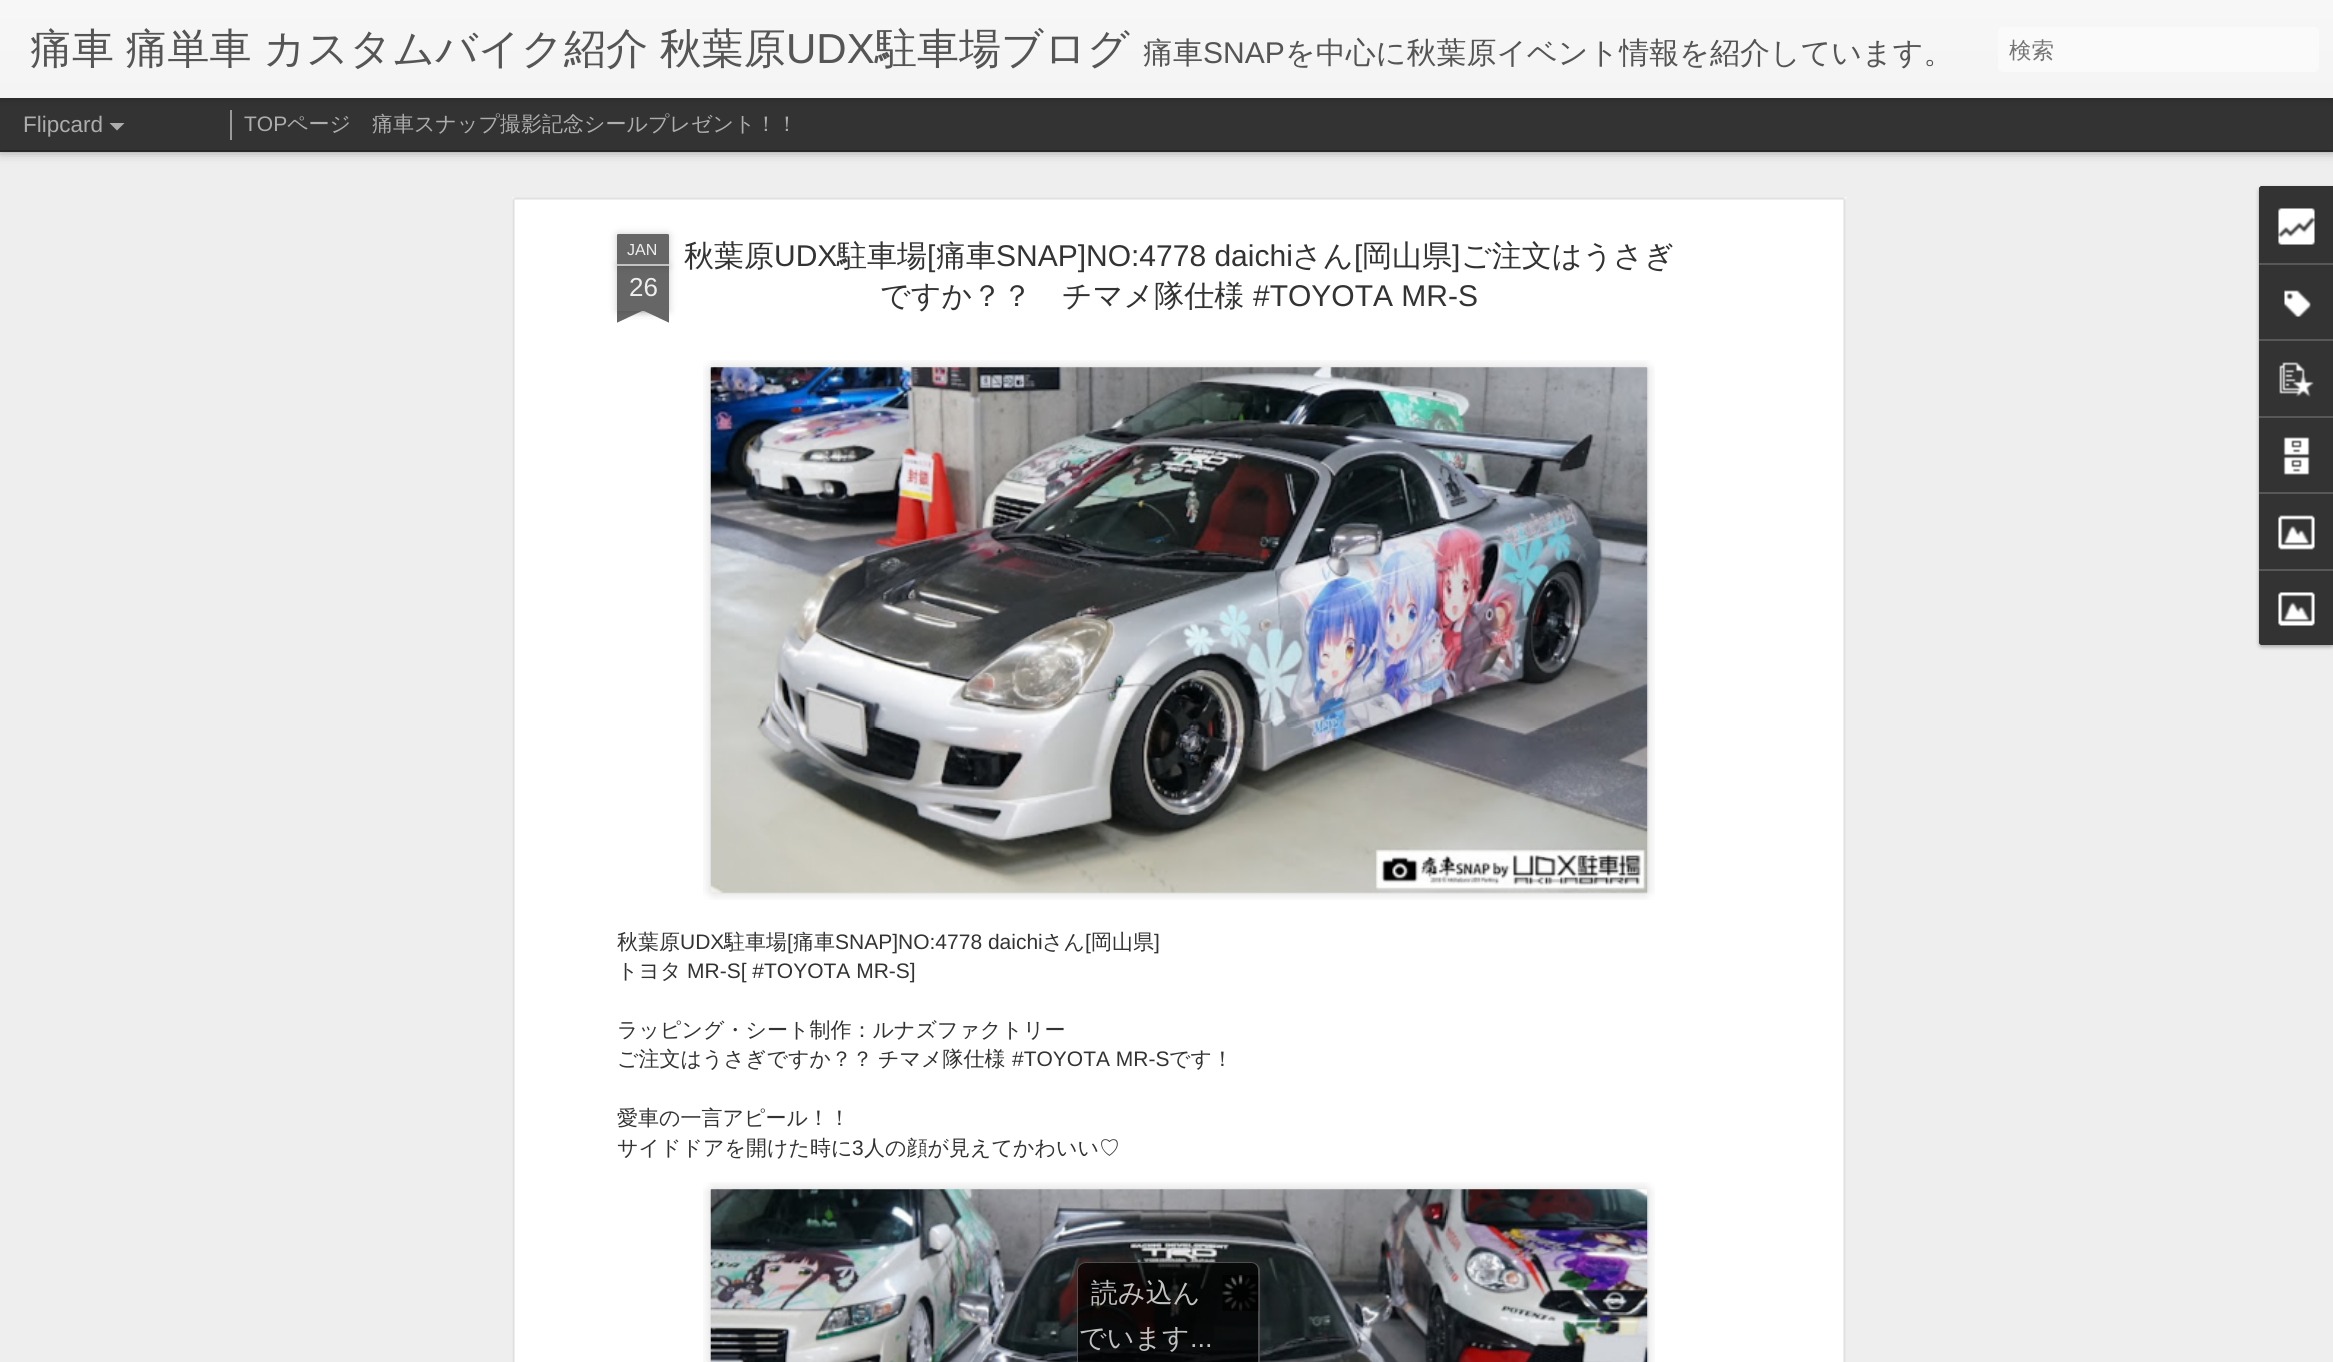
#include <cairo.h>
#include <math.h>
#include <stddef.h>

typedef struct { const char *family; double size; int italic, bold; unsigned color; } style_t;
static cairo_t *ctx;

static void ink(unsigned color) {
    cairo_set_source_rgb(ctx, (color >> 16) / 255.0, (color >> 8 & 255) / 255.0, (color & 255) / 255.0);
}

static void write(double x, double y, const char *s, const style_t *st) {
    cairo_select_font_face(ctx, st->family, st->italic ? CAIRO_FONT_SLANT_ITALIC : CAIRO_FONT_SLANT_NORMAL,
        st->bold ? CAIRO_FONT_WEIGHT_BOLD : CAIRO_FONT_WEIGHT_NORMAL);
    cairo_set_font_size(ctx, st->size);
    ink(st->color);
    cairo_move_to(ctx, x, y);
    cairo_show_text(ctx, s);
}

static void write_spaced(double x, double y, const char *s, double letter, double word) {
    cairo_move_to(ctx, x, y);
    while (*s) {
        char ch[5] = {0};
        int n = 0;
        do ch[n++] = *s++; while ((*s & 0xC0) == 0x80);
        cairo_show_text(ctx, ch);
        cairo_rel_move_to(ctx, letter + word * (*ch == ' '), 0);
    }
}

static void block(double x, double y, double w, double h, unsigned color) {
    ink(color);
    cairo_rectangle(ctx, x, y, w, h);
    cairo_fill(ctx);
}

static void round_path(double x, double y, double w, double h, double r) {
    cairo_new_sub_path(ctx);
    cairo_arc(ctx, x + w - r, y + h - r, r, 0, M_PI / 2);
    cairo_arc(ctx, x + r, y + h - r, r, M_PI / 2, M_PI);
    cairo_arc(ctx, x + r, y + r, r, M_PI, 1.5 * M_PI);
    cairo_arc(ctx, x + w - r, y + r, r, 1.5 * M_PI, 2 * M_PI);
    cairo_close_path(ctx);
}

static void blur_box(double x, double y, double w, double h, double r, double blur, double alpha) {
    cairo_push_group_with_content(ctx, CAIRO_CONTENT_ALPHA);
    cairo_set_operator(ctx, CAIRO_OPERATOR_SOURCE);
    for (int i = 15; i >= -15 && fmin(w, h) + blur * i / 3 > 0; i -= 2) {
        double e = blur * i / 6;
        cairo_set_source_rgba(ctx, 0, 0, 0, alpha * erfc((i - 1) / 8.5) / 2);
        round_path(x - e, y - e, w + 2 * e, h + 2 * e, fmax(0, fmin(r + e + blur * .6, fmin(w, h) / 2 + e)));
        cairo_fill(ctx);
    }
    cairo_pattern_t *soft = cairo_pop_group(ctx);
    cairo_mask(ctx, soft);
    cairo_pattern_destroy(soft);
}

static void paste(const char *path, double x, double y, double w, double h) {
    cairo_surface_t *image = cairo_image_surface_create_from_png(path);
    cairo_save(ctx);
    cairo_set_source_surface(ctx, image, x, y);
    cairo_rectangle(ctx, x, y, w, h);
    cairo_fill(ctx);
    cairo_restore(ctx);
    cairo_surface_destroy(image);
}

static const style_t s1 = {"Liberation Sans", 42, 0, 0, 0x555555};
static const style_t s2 = {"WenQuanYi Zen Hei Medium", 42, 0, 0, 0x555555};
static const style_t s3 = {"WenQuanYi Zen Hei Medium", 30, 0, 0, 0x555555};
static const style_t s4 = {"Liberation Sans", 30, 0, 0, 0x555555};
static const style_t s5 = {"WenQuanYi Zen Hei Medium", 22.5, 0, 0, 0x757575};
static const style_t s6 = {"Liberation Sans", 22.5, 0, 0, 0xadadad};
static const style_t s7 = {"Liberation Sans", 21, 0, 0, 0xadadad};
static const style_t s8 = {"WenQuanYi Zen Hei Medium", 21, 0, 0, 0xadadad};
static const style_t s9 = {"Liberation Sans", 16, 0, 0, 0xeeeeee};
static const style_t s10 = {"Liberation Sans", 26, 0, 0, 0xeeeeee};
static const style_t s11 = {"WenQuanYi Zen Hei Medium", 30, 0, 0, 0x333333};
static const style_t s12 = {"Liberation Sans", 30, 0, 0, 0x333333};
static const style_t s13 = {"WenQuanYi Zen Hei Medium", 21, 0, 0, 0x333333};
static const style_t s14 = {"Liberation Sans", 21, 0, 0, 0x333333};
static const style_t s15 = {"WenQuanYi Zen Hei Medium", 27, 0, 0, 0xc2c1c1};
static const style_t s16 = {"Liberation Sans", 27, 0, 0, 0xc2c1c1};

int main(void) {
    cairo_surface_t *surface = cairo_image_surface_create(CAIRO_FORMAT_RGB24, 2333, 1362);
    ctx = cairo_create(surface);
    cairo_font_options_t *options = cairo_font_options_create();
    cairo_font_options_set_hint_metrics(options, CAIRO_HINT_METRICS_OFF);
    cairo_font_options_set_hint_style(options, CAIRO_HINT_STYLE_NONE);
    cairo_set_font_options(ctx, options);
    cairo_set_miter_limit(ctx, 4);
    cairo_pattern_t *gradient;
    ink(0x333333);
    cairo_paint(ctx);
    block(0, 152, 2333, 1210, 0xeeeeee);
    ink(0x000000);
    blur_box(0, 98, 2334, 52, 0, 6, 0.5);
    block(0, 98, 2333, 52, 0x333333);
    block(230, 110, 2, 30, 0x999999);
    ink(0x000000);
    blur_box(0, 0, 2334, 98, 0, 4, 0.3);
    gradient = cairo_pattern_create_linear(0, 0, 0, 98);
    cairo_pattern_add_color_stop_rgba(gradient, 0, 0.969, 0.969, 0.969, 1);
    cairo_pattern_add_color_stop_rgba(gradient, 1, 0.957, 0.957, 0.957, 1);
    cairo_set_source(ctx, gradient);
    cairo_pattern_destroy(gradient);
    cairo_rectangle(ctx, 0, 0, 2333, 98);
    cairo_fill(ctx);
    cairo_select_font_face(ctx, "WenQuanYi Zen Hei Medium", CAIRO_FONT_SLANT_NORMAL, CAIRO_FONT_WEIGHT_NORMAL);
    cairo_set_font_size(ctx, 42);
    ink(0x555555);
    write_spaced(30, 63, "痛車 痛単車 カスタムバイク紹介 秋葉原", 0, -1);
    write(786, 63, "UDX", &s1);
    write(875, 63, "駐車場ブログ", &s2);
    write(1143, 63, "痛車", &s3);
    write(1203, 63, "SNAP", &s4);
    write(1285, 63, "を中心に秋葉原イベント情報を紹介しています。", &s3);
    ink(0xfafafa);
    round_path(1998, 27, 321, 45, 5);
    cairo_fill(ctx);
    write(2009, 58, "検索", &s5);
    write(23, 132, "Flipcard", &s6);
    cairo_new_path(ctx);
    cairo_move_to(ctx, 109.5, 123);
    cairo_line_to(ctx, 124.5, 123);
    cairo_line_to(ctx, 117, 130.5);
    cairo_close_path(ctx);
    cairo_fill(ctx);
    write(244, 131, "TOP", &s7);
    write(287, 131, "ページ", &s8);
    write(372, 131, "痛車スナップ撮影記念シールプレゼント！！", &s8);
    block(512, 197, 1335, 1165, 0xffffff);
    paste("pic1.png", 512, 197, 1335, 1165);
    ink(0x000000);
    blur_box(617, 266, 52, 45, 0, 4, 0.2);
    block(617, 266, 52, 45, 0x666666);
    ink(0x000000);
    blur_box(617, 234, 52, 32, 1.5, 4, 0.2);
    ink(0x666666);
    cairo_new_path(ctx);
    cairo_move_to(ctx, 618.5, 234);
    cairo_line_to(ctx, 667.5, 234);
    cairo_curve_to(ctx, 668.5, 234, 669, 234.5, 669, 235.5);
    cairo_line_to(ctx, 669, 266);
    cairo_line_to(ctx, 617, 266);
    cairo_line_to(ctx, 617, 235.5);
    cairo_curve_to(ctx, 617, 234.5, 617.5, 234, 618.5, 234);
    cairo_close_path(ctx);
    cairo_fill(ctx);
    block(617, 264, 52, 2, 0xc2c2c2);
    write(627, 255, "JAN", &s9);
    write(629, 296, "26", &s10);
    cairo_save(ctx);
    cairo_rectangle(ctx, 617, 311, 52, 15);
    cairo_clip(ctx);
    ink(0x000000);
    blur_box(603, 296, 75, 15, 0, 4, 0.2);
    cairo_restore(ctx);
    cairo_save(ctx);
    cairo_rectangle(ctx, 617, 311, 52, 15);
    cairo_clip(ctx);
    ink(0x666666);
    cairo_new_path(ctx);
    cairo_move_to(ctx, 603, 312);
    cairo_line_to(ctx, 671, 280);
    cairo_line_to(ctx, 678, 294);
    cairo_line_to(ctx, 610, 326);
    cairo_close_path(ctx);
    cairo_fill(ctx);
    cairo_restore(ctx);
    cairo_save(ctx);
    cairo_rectangle(ctx, 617, 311, 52, 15);
    cairo_clip(ctx);
    ink(0x000000);
    blur_box(608, 296, 75, 15, 0, 4, 0.2);
    cairo_restore(ctx);
    cairo_save(ctx);
    cairo_rectangle(ctx, 617, 311, 52, 15);
    cairo_clip(ctx);
    ink(0x666666);
    cairo_new_path(ctx);
    cairo_move_to(ctx, 614, 280);
    cairo_line_to(ctx, 682, 312);
    cairo_line_to(ctx, 676, 326);
    cairo_line_to(ctx, 608, 294);
    cairo_close_path(ctx);
    cairo_fill(ctx);
    cairo_restore(ctx);
    write(684, 266, "秋葉原", &s11);
    write(774, 266, "UDX", &s12);
    write(837, 266, "駐車場", &s11);
    write(927, 266, "[", &s12);
    write(936, 266, "痛車", &s11);
    write(996, 266, "SNAP]NO:4778 daichi", &s12);
    write(1292, 266, "さん", &s11);
    write(1354, 266, "[", &s12);
    write(1362, 266, "岡山県", &s11);
    write(1452, 266, "]", &s12);
    write(1461, 266, "ご注文はうさぎ", &s11);
    write(880, 306, "ですか？？　チマメ隊仕様", &s11);
    write(1253, 306, "#TOYOTA MR-S", &s12);
    paste("pic2.png", 703, 360, 952, 540);
    paste("pic3.png", 710, 367, 939, 527);
    write(617, 949, "秋葉原", &s13);
    write(680, 949, "UDX", &s14);
    write(724, 949, "駐車場", &s13);
    write(787, 949, "[", &s14);
    write(793, 949, "痛車", &s13);
    write(835, 949, "SNAP]NO:4778 daichi", &s14);
    write(1042, 949, "さん", &s13);
    write(1085, 949, "[", &s14);
    write(1091, 949, "岡山県", &s13);
    write(1154, 949, "]", &s14);
    write(617, 978, "トヨタ", &s13);
    write(687, 978, "MR-S[ #TOYOTA MR-S]", &s14);
    write(617, 1037, "ラッピング・シート制作：ルナズファクトリー", &s13);
    write(617, 1066, "ご注文はうさぎですか？？", &s13);
    write(878, 1066, "チマメ隊仕様", &s13);
    write(1012, 1066, "#TOYOTA MR-S", &s14);
    write(1169, 1066, "です！", &s13);
    write(617, 1125, "愛車の一言アピール！！", &s13);
    write(617, 1155, "サイドドアを開けた時に", &s13);
    write(852, 1155, "3", &s14);
    write(864, 1155, "人の顔が見えてかわいい♡", &s13);
    paste("pic4.png", 703, 1182, 952, 180);
    paste("pic5.png", 710, 1189, 939, 173);
    ink(0x000000);
    blur_box(2259, 188, 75, 459, 3, 2, 0.3);
    ink(0x333333);
    cairo_new_path(ctx);
    cairo_move_to(ctx, 2262, 186);
    cairo_line_to(ctx, 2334, 186);
    cairo_line_to(ctx, 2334, 645);
    cairo_line_to(ctx, 2262, 645);
    cairo_curve_to(ctx, 2260.5, 645, 2259, 643.5, 2259, 642);
    cairo_line_to(ctx, 2259, 189);
    cairo_curve_to(ctx, 2259, 187.5, 2260.5, 186, 2262, 186);
    cairo_close_path(ctx);
    cairo_fill(ctx);
    cairo_new_path(ctx);
    cairo_move_to(ctx, 2262, 186);
    cairo_line_to(ctx, 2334, 186);
    cairo_line_to(ctx, 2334, 263);
    cairo_line_to(ctx, 2259, 263);
    cairo_line_to(ctx, 2259, 189);
    cairo_curve_to(ctx, 2259, 187.5, 2260.5, 186, 2262, 186);
    cairo_close_path(ctx);
    cairo_fill(ctx);
    paste("pic6.png", 2278, 208, 37, 37);
    block(2259, 263, 74, 2, 0x585858);
    paste("pic7.png", 2284, 290, 27, 27);
    block(2259, 339, 74, 2, 0x585858);
    paste("pic8.png", 2279, 362, 35, 35);
    block(2259, 416, 74, 2, 0x585858);
    paste("pic9.png", 2283, 437, 27, 38);
    block(2259, 492, 74, 2, 0x585858);
    paste("pic10.png", 2278, 515, 37, 35);
    ink(0x333333);
    cairo_new_path(ctx);
    cairo_move_to(ctx, 2259, 569);
    cairo_line_to(ctx, 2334, 569);
    cairo_line_to(ctx, 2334, 645);
    cairo_line_to(ctx, 2262, 645);
    cairo_curve_to(ctx, 2260.5, 645, 2259, 643.5, 2259, 642);
    cairo_close_path(ctx);
    cairo_fill(ctx);
    block(2259, 569, 74, 2, 0x585858);
    paste("pic11.png", 2278, 592, 37, 34);
    cairo_save(ctx);
    cairo_set_fill_rule(ctx, CAIRO_FILL_RULE_EVEN_ODD);
    cairo_new_path(ctx);
    cairo_move_to(ctx, 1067, 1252);
    cairo_line_to(ctx, 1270, 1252);
    cairo_line_to(ctx, 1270, 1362);
    cairo_line_to(ctx, 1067, 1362);
    cairo_close_path(ctx);
    cairo_move_to(ctx, 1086, 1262);
    cairo_line_to(ctx, 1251, 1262);
    cairo_curve_to(ctx, 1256, 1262, 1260, 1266, 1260, 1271);
    cairo_line_to(ctx, 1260, 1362);
    cairo_line_to(ctx, 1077, 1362);
    cairo_line_to(ctx, 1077, 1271);
    cairo_curve_to(ctx, 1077, 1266, 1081, 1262, 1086, 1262);
    cairo_close_path(ctx);
    cairo_clip(ctx);
    ink(0x333333);
    blur_box(1077, 1262, 183, 100, 9, 3, 0.75);
    cairo_restore(ctx);
    cairo_set_source_rgba(ctx, 0, 0, 0, 0.75);
    cairo_new_path(ctx);
    cairo_move_to(ctx, 1086, 1262);
    cairo_line_to(ctx, 1251, 1262);
    cairo_curve_to(ctx, 1256, 1262, 1260, 1266, 1260, 1271);
    cairo_line_to(ctx, 1260, 1362);
    cairo_line_to(ctx, 1077, 1362);
    cairo_line_to(ctx, 1077, 1271);
    cairo_curve_to(ctx, 1077, 1266, 1081, 1262, 1086, 1262);
    cairo_close_path(ctx);
    cairo_fill(ctx);
    cairo_set_source_rgba(ctx, 0.4, 0.4, 0.4, 0.75);
    cairo_set_fill_rule(ctx, CAIRO_FILL_RULE_EVEN_ODD);
    cairo_new_path(ctx);
    cairo_move_to(ctx, 1086, 1262);
    cairo_line_to(ctx, 1251, 1262);
    cairo_curve_to(ctx, 1256, 1262, 1260, 1266, 1260, 1270);
    cairo_line_to(ctx, 1260, 1362);
    cairo_line_to(ctx, 1077, 1362);
    cairo_line_to(ctx, 1077, 1270);
    cairo_curve_to(ctx, 1077, 1266, 1081, 1262, 1086, 1262);
    cairo_close_path(ctx);
    cairo_move_to(ctx, 1086, 1263);
    cairo_line_to(ctx, 1251, 1263);
    cairo_curve_to(ctx, 1255, 1263, 1258, 1266, 1258, 1270);
    cairo_line_to(ctx, 1258, 1362);
    cairo_line_to(ctx, 1078, 1362);
    cairo_line_to(ctx, 1078, 1270);
    cairo_curve_to(ctx, 1078, 1266, 1082, 1263, 1086, 1263);
    cairo_close_path(ctx);
    cairo_fill(ctx);
    paste("pic12.png", 1222, 1275, 37, 36);
    write(1091, 1302, "読み込ん", &s15);
    write(1079, 1347, "でいます", &s15);
    write(1190, 1347, "...", &s16);
    cairo_surface_write_to_png(surface, "screenshot.png");
    cairo_font_options_destroy(options);
    cairo_destroy(ctx);
    cairo_surface_destroy(surface);
    return 0;
}
